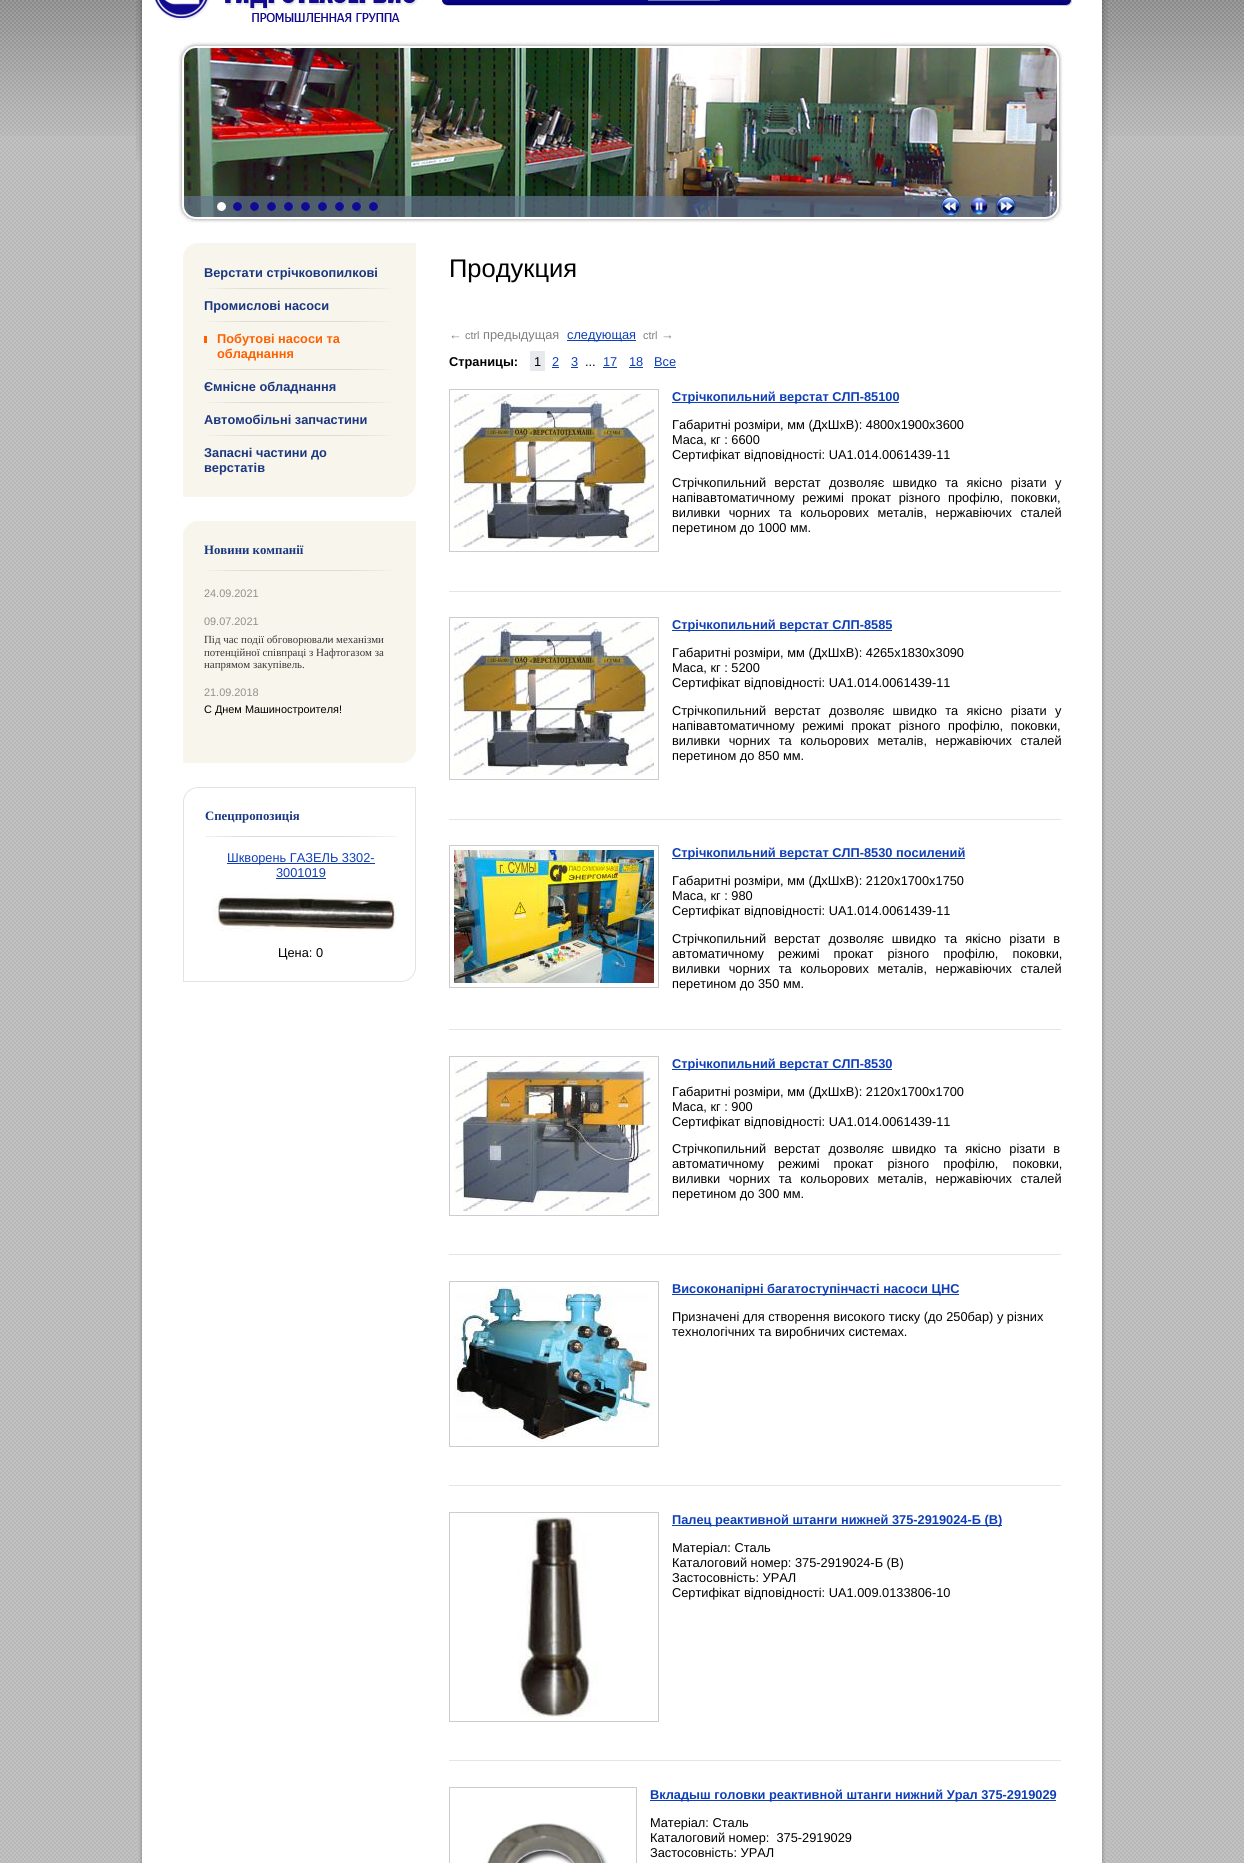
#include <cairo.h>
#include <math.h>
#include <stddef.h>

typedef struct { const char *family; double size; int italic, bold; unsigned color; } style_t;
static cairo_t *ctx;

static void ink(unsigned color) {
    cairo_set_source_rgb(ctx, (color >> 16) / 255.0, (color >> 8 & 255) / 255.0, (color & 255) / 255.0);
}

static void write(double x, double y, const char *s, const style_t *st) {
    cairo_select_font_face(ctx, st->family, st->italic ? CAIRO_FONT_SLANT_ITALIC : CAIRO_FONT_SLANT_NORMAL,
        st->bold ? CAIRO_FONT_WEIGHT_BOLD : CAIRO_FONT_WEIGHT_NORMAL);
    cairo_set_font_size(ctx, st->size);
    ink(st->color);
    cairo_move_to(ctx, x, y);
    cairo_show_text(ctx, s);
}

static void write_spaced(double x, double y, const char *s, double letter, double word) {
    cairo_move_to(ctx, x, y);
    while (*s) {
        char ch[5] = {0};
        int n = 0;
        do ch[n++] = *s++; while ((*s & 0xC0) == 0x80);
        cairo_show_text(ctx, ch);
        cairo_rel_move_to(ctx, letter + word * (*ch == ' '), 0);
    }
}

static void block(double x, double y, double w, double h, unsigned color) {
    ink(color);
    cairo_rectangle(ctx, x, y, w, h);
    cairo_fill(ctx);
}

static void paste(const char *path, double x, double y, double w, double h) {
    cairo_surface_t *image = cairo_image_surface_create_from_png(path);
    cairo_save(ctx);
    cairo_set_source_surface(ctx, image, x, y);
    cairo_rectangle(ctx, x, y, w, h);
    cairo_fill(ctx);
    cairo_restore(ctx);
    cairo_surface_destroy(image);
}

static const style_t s1 = {"Liberation Sans", 12.8, 0, 1, 0x1a377f};
static const style_t s2 = {"Liberation Sans", 12.8, 0, 1, 0xff6000};
static const style_t s3 = {"Liberation Serif", 12.8, 0, 1, 0x1a377f};
static const style_t s4 = {"Liberation Sans", 10.9, 0, 0, 0x91908b};
static const style_t s5 = {"Liberation Serif", 10.9, 0, 0, 0x383838};
static const style_t s6 = {"Carlito", 10.9, 0, 0, 0x383838};
static const style_t s7 = {"Liberation Sans", 10.9, 0, 0, 0x000000};
static const style_t s8 = {"Liberation Sans", 12.8, 0, 0, 0x0e3fb8};
static const style_t s9 = {"Liberation Sans", 12.8, 0, 0, 0x000000};
static const style_t s10 = {"Liberation Sans", 25.5, 0, 0, 0x000000};
static const style_t s11 = {"Liberation Serif", 12.8, 0, 0, 0x7e7e7e};
static const style_t s12 = {"Liberation Sans", 10.9, 0, 0, 0x7e7e7e};
static const style_t s13 = {"Liberation Sans", 12.8, 0, 0, 0x7e7e7e};
static const style_t s14 = {"Liberation Sans", 12.8, 0, 1, 0x000000};
static const style_t s15 = {"Liberation Sans", 12.8, 0, 1, 0x0e3fb8};

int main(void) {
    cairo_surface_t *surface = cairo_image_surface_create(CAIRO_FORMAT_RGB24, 1244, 1863);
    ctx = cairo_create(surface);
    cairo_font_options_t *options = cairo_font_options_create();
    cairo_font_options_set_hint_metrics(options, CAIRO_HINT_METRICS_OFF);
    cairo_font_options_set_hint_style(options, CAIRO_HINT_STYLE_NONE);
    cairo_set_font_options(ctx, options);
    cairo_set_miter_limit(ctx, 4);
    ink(0xffffff);
    cairo_paint(ctx);
    paste("pic1.png", 0, 136, 1244, 1727);
    paste("pic2.png", 0, 0, 1244, 136);
    paste("pic3.png", 136, 0, 972, 1863);
    paste("pic4.png", 136, 0, 6, 161);
    paste("pic5.png", 1102, 0, 6, 161);
    paste("pic6.png", 155, 0, 263, 22);
    paste("pic7.png", 448, 0, 618, 6);
    paste("pic8.png", 442, 0, 6, 6);
    paste("pic9.png", 474, 0, 381, 6);
    paste("pic10.png", 472, 0, 2, 6);
    paste("pic10.png", 569, 0, 2, 6);
    paste("pic10.png", 638, 0, 2, 6);
    paste("pic11.png", 648, 0, 72, 1);
    paste("pic10.png", 721, 0, 2, 6);
    paste("pic10.png", 780, 0, 2, 6);
    paste("pic12.png", 1066, 0, 6, 6);
    paste("pic13.png", 178, 41, 886, 182);
    paste("pic14.png", 216, 202, 10, 9);
    paste("pic15.png", 233, 202, 10, 9);
    paste("pic16.png", 250, 202, 10, 9);
    paste("pic17.png", 267, 202, 10, 9);
    paste("pic18.png", 284, 202, 10, 9);
    paste("pic19.png", 301, 202, 10, 9);
    paste("pic20.png", 318, 202, 10, 9);
    paste("pic21.png", 335, 202, 10, 9);
    paste("pic22.png", 352, 202, 10, 9);
    paste("pic23.png", 369, 202, 10, 9);
    paste("pic24.png", 941, 197, 20, 19);
    paste("pic25.png", 970, 196, 19, 19);
    paste("pic26.png", 996, 196, 20, 20);
    block(183, 243, 233, 254, 0xf7f5ec);
    paste("pic27.png", 183, 243, 12, 12);
    paste("pic28.png", 404, 485, 12, 12);
    paste("pic29.png", 208, 288, 182, 1);
    write(204, 277, "Верстати стрічковопилкові", &s1);
    paste("pic29.png", 208, 321, 182, 1);
    write(204, 310, "Промислові насоси", &s1);
    paste("pic29.png", 208, 369, 182, 1);
    write(217, 343, "Побутові насоси та", &s2);
    block(204, 336, 3, 7, 0xff6000);
    write(217, 358, "обладнання", &s2);
    paste("pic29.png", 208, 402, 182, 1);
    write(204, 391, "Ємнісне обладнання", &s1);
    paste("pic29.png", 208, 435, 182, 1);
    write(204, 424, "Автомобільні запчастини", &s1);
    write(204, 457, "Запасні частини до", &s1);
    write(204, 472, "верстатів", &s1);
    block(183, 521, 233, 242, 0xf7f5ec);
    paste("pic27.png", 183, 521, 12, 12);
    paste("pic28.png", 404, 751, 12, 12);
    paste("pic29.png", 208, 570, 182, 1);
    write(204, 554, "Новини компанії", &s3);
    write(204, 597, "24.09.2021", &s4);
    write(204, 625, "09.07.2021", &s4);
    write(204, 643, "Під час події обговорюва", &s5);
    write(322, 643, "ли", &s6);
    write(336, 643, "механізми", &s5);
    write(204, 656, "потенційної співпраці з Нафтогазом за", &s5);
    write(204, 668, "напрямом закупівель.", &s5);
    write(204, 696, "21.09.2018", &s4);
    write(204, 713, "С Днем Машиностроителя!", &s7);
    paste("pic30.png", 183, 787, 232, 13);
    block(415, 787, 1, 182, 0xe3e3e3);
    block(183, 800, 1, 182, 0xe3e3e3);
    paste("pic31.png", 205, 836, 192, 1);
    write(205, 820, "Спецпропозиція", &s3);
    block(227, 863, 148, 1, 0x0e3fb8);
    write(227, 862, "Шкворень ГАЗЕЛЬ 3302-", &s8);
    write(276, 877, "3001019", &s8);
    block(276, 878, 50, 1, 0x0e3fb8);
    paste("pic32.png", 213, 893, 184, 39);
    write(278, 957, "Цена: 0", &s9);
    paste("pic33.png", 184, 969, 232, 13);
    write(449, 277, "Продукция", &s10);
    write(449, 339, "←", &s11);
    write(465, 339, "ctrl", &s12);
    write(483, 339, "предыдущая", &s13);
    block(567, 340, 69, 1, 0x0e3fb8);
    write(567, 339, "следующая", &s8);
    write(643, 339, "ctrl", &s12);
    write(661, 339, "→", &s11);
    write(449, 366, "Страницы:", &s14);
    block(530, 351, 15, 20, 0xe8e9ec);
    write(534, 366, "1", &s9);
    write(552, 366, "2", &s8);
    block(552, 367, 7, 1, 0x0e3fb8);
    write(571, 366, "3", &s8);
    block(571, 367, 7, 1, 0x0e3fb8);
    write(585, 366, "...", &s9);
    write(603, 366, "17", &s8);
    block(603, 367, 14, 1, 0x0e3fb8);
    write(629, 366, "18", &s8);
    block(629, 367, 14, 1, 0x0e3fb8);
    write(654, 366, "Все", &s8);
    block(654, 367, 22, 1, 0x0e3fb8);
    block(449, 591, 612, 1, 0xe5e5e5);
    cairo_rectangle(ctx, 449.5, 389.5, 209, 162);
    ink(0xcccccc);
    cairo_set_line_width(ctx, 1);
    cairo_stroke(ctx);
    paste("pic34.png", 454, 394, 200, 153);
    block(672, 402, 227, 1, 0x0e3fb8);
    write(672, 401, "Стрічкопильний верстат СЛП-85100", &s15);
    write(672, 429, "Габаритні розміри, мм (ДхШхВ): 4800х1900х3600", &s9);
    write(672, 444, "Маса, кг : 6600", &s9);
    write(672, 459, "Сертифікат відповідності: UA1.014.0061439-11", &s9);
    write_spaced(672, 487, "Стрічкопильний верстат дозволяє швидко та якісно різати у", 0, 4.75);
    write_spaced(672, 502, "напівавтоматичному режимі прокат різного профілю, поковки,", 0, 4);
    write_spaced(672, 517, "виливки чорних та кольорових металів, нержавіючих сталей", 0, 5);
    write(672, 532, "перетином до 1000 мм.", &s9);
    block(449, 819, 612, 1, 0xe5e5e5);
    cairo_rectangle(ctx, 449.5, 617.5, 209, 162);
    ink(0xcccccc);
    cairo_stroke(ctx);
    paste("pic34.png", 454, 622, 200, 153);
    block(672, 630, 220, 1, 0x0e3fb8);
    write(672, 629, "Стрічкопильний верстат СЛП-8585", &s15);
    write(672, 657, "Габаритні розміри, мм (ДхШхВ): 4265х1830х3090", &s9);
    write(672, 672, "Маса, кг : 5200", &s9);
    write(672, 687, "Сертифікат відповідності: UA1.014.0061439-11", &s9);
    write_spaced(672, 715, "Стрічкопильний верстат дозволяє швидко та якісно різати у", 0, 4.75);
    write_spaced(672, 730, "напівавтоматичному режимі прокат різного профілю, поковки,", 0, 4);
    write_spaced(672, 745, "виливки чорних та кольорових металів, нержавіючих сталей", 0, 5);
    write(672, 760, "перетином до 850 мм.", &s9);
    block(449, 1029, 612, 1, 0xe5e5e5);
    cairo_rectangle(ctx, 449.5, 845.5, 209, 142);
    ink(0xcccccc);
    cairo_stroke(ctx);
    paste("pic35.png", 454, 850, 200, 133);
    block(672, 858, 293, 1, 0x0e3fb8);
    write(672, 857, "Стрічкопильний верстат СЛП-8530 посилений", &s15);
    write(672, 885, "Габаритні розміри, мм (ДхШхВ): 2120х1700х1750", &s9);
    write(672, 900, "Маса, кг : 980", &s9);
    write(672, 915, "Сертифікат відповідності: UA1.014.0061439-11", &s9);
    write_spaced(672, 943, "Стрічкопильний верстат дозволяє швидко та якісно різати в", 0, 4.5);
    write_spaced(672, 958, "автоматичному режимі прокат різного профілю, поковки,", 0, 10.5);
    write_spaced(672, 973, "виливки чорних та кольорових металів, нержавіючих сталей", 0, 5);
    write(672, 988, "перетином до 350 мм.", &s9);
    block(449, 1254, 612, 1, 0xe5e5e5);
    cairo_rectangle(ctx, 449.5, 1056.5, 209, 159);
    ink(0xcccccc);
    cairo_stroke(ctx);
    paste("pic36.png", 454, 1061, 200, 150);
    block(672, 1069, 220, 1, 0x0e3fb8);
    write(672, 1068, "Стрічкопильний верстат СЛП-8530", &s15);
    write(672, 1096, "Габаритні розміри, мм (ДхШхВ): 2120х1700х1700", &s9);
    write(672, 1111, "Маса, кг : 900", &s9);
    write(672, 1126, "Сертифікат відповідності: UA1.014.0061439-11", &s9);
    write_spaced(672, 1153, "Стрічкопильний верстат дозволяє швидко та якісно різати в", 0, 4.5);
    write_spaced(672, 1168, "автоматичному режимі прокат різного профілю, поковки,", 0, 10.5);
    write_spaced(672, 1183, "виливки чорних та кольорових металів, нержавіючих сталей", 0, 5);
    write(672, 1198, "перетином до 300 мм.", &s9);
    block(449, 1485, 612, 1, 0xe5e5e5);
    cairo_rectangle(ctx, 449.5, 1281.5, 209, 165);
    ink(0xcccccc);
    cairo_stroke(ctx);
    paste("pic37.png", 454, 1286, 200, 156);
    block(672, 1294, 287, 1, 0x0e3fb8);
    write(672, 1293, "Високонапірні багатоступінчасті насоси ЦНС", &s15);
    write(672, 1321, "Призначені для створення високого тиску (до 250бар) у різних", &s9);
    write(672, 1336, "технологічних та виробничих системах.", &s9);
    block(449, 1760, 612, 1, 0xe5e5e5);
    cairo_rectangle(ctx, 449.5, 1512.5, 209, 209);
    ink(0xcccccc);
    cairo_stroke(ctx);
    paste("pic38.png", 518, 1517, 80, 200);
    block(672, 1525, 330, 1, 0x0e3fb8);
    write(672, 1524, "Палец реактивной штанги нижней 375-2919024-Б (В)", &s15);
    write(672, 1552, "Матеріал: Сталь", &s9);
    write(672, 1567, "Каталоговий номер: 375-2919024-Б (В)", &s9);
    write(672, 1582, "Застосовність: УРАЛ", &s9);
    write(672, 1597, "Сертифікат відповідності: UA1.009.0133806-10", &s9);
    cairo_rectangle(ctx, 449.5, 1787.5, 187, 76);
    ink(0xcccccc);
    cairo_stroke(ctx);
    paste("pic39.png", 486, 1823, 122, 40);
    block(650, 1800, 406, 1, 0x0e3fb8);
    write(650, 1799, "Вкладыш головки реактивной штанги нижний Урал 375-2919029", &s15);
    write(650, 1827, "Матеріал: Сталь", &s9);
    write(650, 1842, "Каталоговий номер:  375-2919029", &s9);
    write(650, 1857, "Застосовність: УРАЛ", &s9);
    cairo_surface_write_to_png(surface, "screenshot.png");
    cairo_font_options_destroy(options);
    cairo_destroy(ctx);
    cairo_surface_destroy(surface);
    return 0;
}
